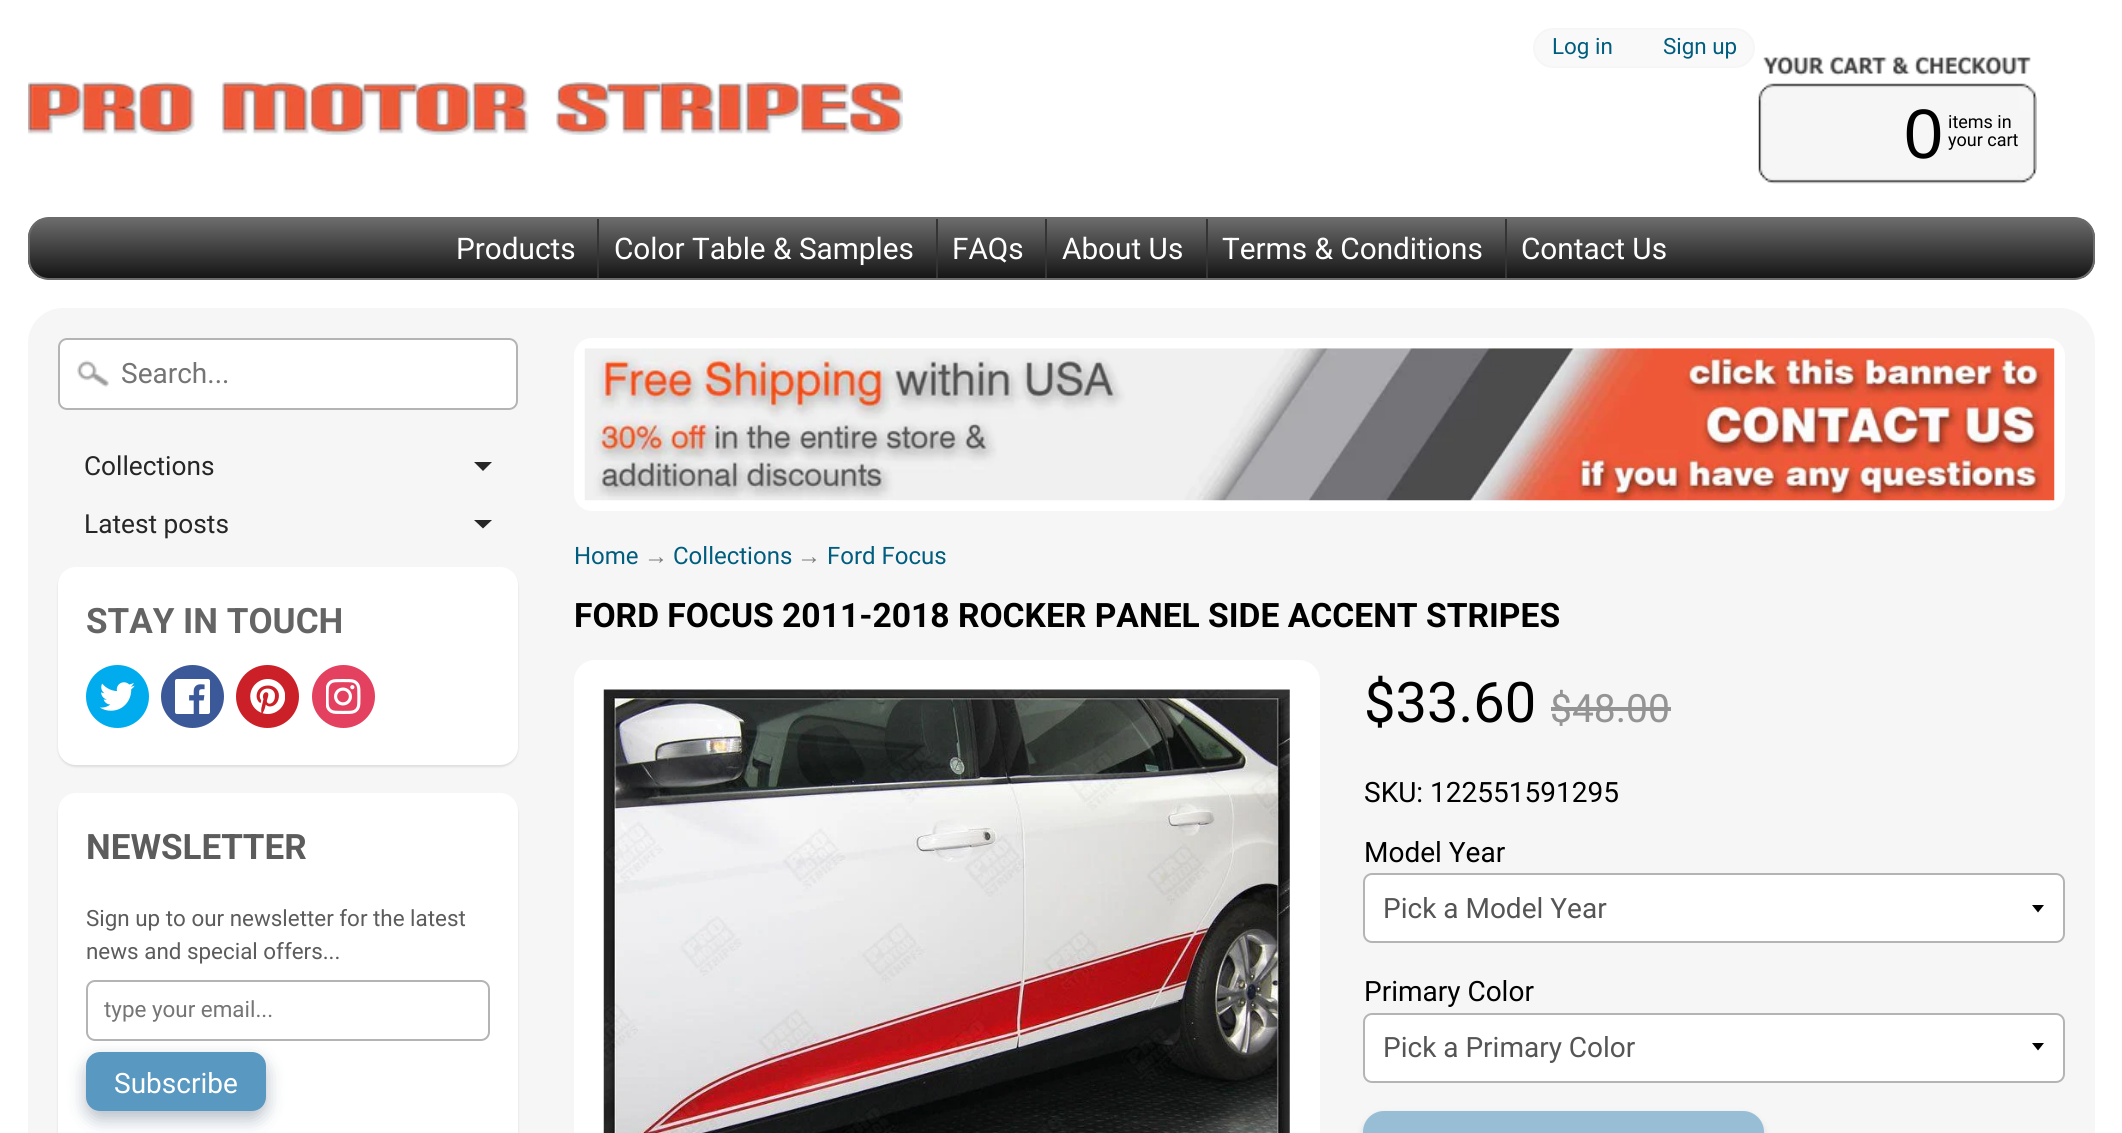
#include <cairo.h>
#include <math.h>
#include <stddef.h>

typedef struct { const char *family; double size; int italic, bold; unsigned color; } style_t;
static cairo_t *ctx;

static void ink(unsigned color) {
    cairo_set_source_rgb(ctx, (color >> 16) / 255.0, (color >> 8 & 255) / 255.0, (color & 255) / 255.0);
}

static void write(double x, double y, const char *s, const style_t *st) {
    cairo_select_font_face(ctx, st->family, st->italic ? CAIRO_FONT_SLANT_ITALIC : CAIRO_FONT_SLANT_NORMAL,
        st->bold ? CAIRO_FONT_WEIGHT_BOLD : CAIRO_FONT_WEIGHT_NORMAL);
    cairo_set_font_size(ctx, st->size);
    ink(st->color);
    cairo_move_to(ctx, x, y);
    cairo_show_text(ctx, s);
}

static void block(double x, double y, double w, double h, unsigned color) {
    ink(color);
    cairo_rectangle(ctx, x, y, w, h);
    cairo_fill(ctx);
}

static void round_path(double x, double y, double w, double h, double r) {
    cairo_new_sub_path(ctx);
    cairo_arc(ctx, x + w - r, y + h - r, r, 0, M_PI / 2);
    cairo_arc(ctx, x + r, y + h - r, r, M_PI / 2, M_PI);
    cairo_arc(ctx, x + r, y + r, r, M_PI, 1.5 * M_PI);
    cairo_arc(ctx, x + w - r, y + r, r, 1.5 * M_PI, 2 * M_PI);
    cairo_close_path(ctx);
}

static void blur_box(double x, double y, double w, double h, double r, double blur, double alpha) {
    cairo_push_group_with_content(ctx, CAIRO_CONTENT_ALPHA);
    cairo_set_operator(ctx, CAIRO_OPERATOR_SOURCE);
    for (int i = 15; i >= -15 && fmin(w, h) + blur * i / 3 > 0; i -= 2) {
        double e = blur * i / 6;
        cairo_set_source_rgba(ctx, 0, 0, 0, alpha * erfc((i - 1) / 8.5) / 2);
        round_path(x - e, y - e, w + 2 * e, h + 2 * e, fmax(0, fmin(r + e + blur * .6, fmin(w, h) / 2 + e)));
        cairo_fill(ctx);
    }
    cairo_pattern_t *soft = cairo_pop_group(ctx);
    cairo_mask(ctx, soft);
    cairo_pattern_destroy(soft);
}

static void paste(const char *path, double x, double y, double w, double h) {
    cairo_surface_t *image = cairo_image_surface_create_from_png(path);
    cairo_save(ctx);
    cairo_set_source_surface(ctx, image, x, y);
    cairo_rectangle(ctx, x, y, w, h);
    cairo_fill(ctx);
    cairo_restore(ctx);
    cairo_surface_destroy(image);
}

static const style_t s1 = {"Roboto", 22.4, 0, 0, 0x005d7e};
static const style_t s2 = {"Liberation Sans", 70, 0, 0, 0x000000};
static const style_t s3 = {"Roboto", 18, 0, 0, 0x000000};
static const style_t s4 = {"Roboto", 29.75, 0, 0, 0xffffff};
static const style_t s5 = {"Roboto", 28, 0, 0, 0x757575};
static const style_t s6 = {"Roboto", 26.25, 0, 0, 0x262626};
static const style_t s7 = {"Roboto", 35, 0, 1, 0x646464};
static const style_t s8 = {"Roboto", 35, 0, 1, 0x5c5c5c};
static const style_t s9 = {"Roboto", 22.4, 0, 0, 0x5c5c5c};
static const style_t s10 = {"Roboto", 22.4, 0, 0, 0x757575};
static const style_t s11 = {"Roboto", 28, 0, 0, 0xffffff};
static const style_t s12 = {"Roboto", 24, 0, 0, 0x005d7e};
static const style_t s13 = {"Liberation Sans", 24, 0, 0, 0x7b7b7b};
static const style_t s14 = {"Roboto", 33.6, 0, 1, 0x000000};
static const style_t s15 = {"Roboto", 56, 0, 0, 0x000000};
static const style_t s16 = {"Roboto", 39, 0, 0, 0x949494};
static const style_t s17 = {"Roboto", 28, 0, 0, 0x000000};
static const style_t s18 = {"Roboto", 28, 0, 0, 0x555555};

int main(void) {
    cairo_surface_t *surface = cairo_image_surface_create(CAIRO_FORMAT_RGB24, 2122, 1133);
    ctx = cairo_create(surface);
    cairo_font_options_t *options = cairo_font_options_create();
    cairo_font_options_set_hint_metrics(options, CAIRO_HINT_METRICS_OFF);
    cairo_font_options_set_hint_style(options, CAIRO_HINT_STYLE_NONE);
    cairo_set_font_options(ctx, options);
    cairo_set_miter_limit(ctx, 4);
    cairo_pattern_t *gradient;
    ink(0xffffff);
    cairo_paint(ctx);
    ink(0xf9f9f9);
    round_path(1534, 29, 220, 38, 19);
    cairo_fill_preserve(ctx);
    ink(0xf6f6f6);
    cairo_stroke(ctx);
    write(1552, 54, "Log in", &s1);
    write(1663, 54, "Sign up", &s1);
    paste("pic1.png", 28, 82, 875, 53);
    paste("pic2.png", 1758, 55, 279, 129);
    write(1904, 158, "0", &s2);
    write(1948, 128, "items in", &s3);
    write(1948, 146, "your cart", &s3);
    cairo_save(ctx);
    round_path(28, 217, 2067, 63, 21);
    cairo_clip(ctx);
    gradient = cairo_pattern_create_linear(1061, 219, 1061, 278);
    cairo_pattern_add_color_stop_rgba(gradient, 0, 0.42, 0.42, 0.42, 1);
    cairo_pattern_add_color_stop_rgba(gradient, 1, 0.082, 0.082, 0.082, 1);
    cairo_set_source(ctx, gradient);
    cairo_pattern_destroy(gradient);
    cairo_rectangle(ctx, 28, 219, 2067, 59);
    cairo_fill(ctx);
    cairo_restore(ctx);
    round_path(29, 218, 2065, 61, 20);
    ink(0x6b6b6b);
    cairo_stroke(ctx);
    write(456, 259, "Products", &s4);
    block(597, 219, 2, 59, 0x343434);
    write(614, 259, "Color Table & Samples", &s4);
    block(936, 219, 2, 59, 0x343434);
    write(952, 259, "FAQs", &s4);
    block(1045, 219, 2, 59, 0x343434);
    write(1062, 259, "About Us", &s4);
    block(1206, 219, 2, 59, 0x343434);
    write(1222, 259, "Terms & Conditions", &s4);
    block(1505, 219, 2, 59, 0x343434);
    write(1521, 259, "Contact Us", &s4);
    ink(0xf6f6f6);
    round_path(28, 308, 2067, 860, 35);
    cairo_fill(ctx);
    ink(0xffffff);
    round_path(58, 338, 460, 72, 9);
    cairo_fill(ctx);
    paste("pic3.png", 77, 360, 32, 27);
    round_path(59, 339, 458, 70, 8);
    ink(0xb4b4b4);
    cairo_stroke(ctx);
    write(121, 383, "Search...", &s5);
    write(84, 475, "Collections", &s6);
    cairo_new_path(ctx);
    cairo_move_to(ctx, 474, 462);
    cairo_line_to(ctx, 492, 462);
    cairo_line_to(ctx, 483, 471);
    cairo_close_path(ctx);
    cairo_fill(ctx);
    write(84, 533, "Latest posts", &s6);
    cairo_new_path(ctx);
    cairo_move_to(ctx, 474, 520);
    cairo_line_to(ctx, 492, 520);
    cairo_line_to(ctx, 483, 528.5);
    cairo_close_path(ctx);
    cairo_fill(ctx);
    ink(0x000000);
    blur_box(58, 569, 460, 198, 18, 1, 0.1);
    ink(0xffffff);
    round_path(58, 567, 460, 198, 18);
    cairo_fill(ctx);
    write(86, 633, "STAY IN TOUCH", &s7);
    ink(0x00aced);
    cairo_new_path(ctx);
    cairo_arc(ctx, 117.5, 696.5, 31.5, 0, 2 * M_PI);
    cairo_fill(ctx);
    paste("pic4.png", 100, 682, 35, 29);
    ink(0x3b5998);
    cairo_arc(ctx, 192.5, 696.5, 31.5, 0, 2 * M_PI);
    cairo_fill(ctx);
    paste("pic5.png", 175, 679, 35, 35);
    ink(0xcb2027);
    cairo_arc(ctx, 267.5, 696.5, 31.5, 0, 2 * M_PI);
    cairo_fill(ctx);
    paste("pic6.png", 250, 679, 35, 35);
    ink(0xe4405f);
    cairo_arc(ctx, 343.5, 696.5, 31.5, 0, 2 * M_PI);
    cairo_fill(ctx);
    paste("pic7.png", 326, 679, 35, 35);
    ink(0x000000);
    blur_box(58, 795, 460, 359, 18, 1, 0.1);
    ink(0xffffff);
    round_path(58, 793, 460, 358, 18);
    cairo_fill(ctx);
    write(86, 859, "NEWSLETTER", &s8);
    write(86, 926, "Sign up to our newsletter for the latest", &s9);
    write(86, 959, "news and special offers...", &s9);
    round_path(87, 981, 402, 59, 8);
    ink(0xb4b4b4);
    cairo_stroke(ctx);
    write(104, 1017, "type your email...", &s10);
    ink(0x73a1d7);
    blur_box(86, 1062, 180, 60, 14, 9, 0.19);
    ink(0x000000);
    blur_box(86, 1059, 180, 59, 14, 9, 0.2);
    ink(0x5998c1);
    round_path(86, 1052, 180, 59, 14);
    cairo_fill(ctx);
    write(114, 1093, "Subscribe", &s11);
    round_path(574, 338, 1491, 173, 18);
    cairo_fill(ctx);
    paste("pic8.png", 584, 348, 1471, 153);
    write(574, 564, "Home", &s12);
    write(644, 564, "→", &s13);
    write(673, 564, "Collections", &s12);
    write(797, 564, "→", &s13);
    write(827, 564, "Ford Focus", &s12);
    write(574, 627, "FORD FOCUS 2011-2018 ROCKER PANEL SIDE ACCENT STRIPES", &s14);
    ink(0xffffff);
    round_path(574, 660, 746, 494, 21);
    cairo_fill(ctx);
    paste("pic9.png", 603, 689, 687, 444);
    write(1364, 722, "$33.60", &s15);
    write(1550, 722, "$48.00", &s16);
    block(1551, 707, 120, 4, 0x949494);
    write(1364, 802, "SKU: 122551591295", &s17);
    write(1364, 862, "Model Year", &s17);
    ink(0xffffff);
    round_path(1363, 873, 702, 70, 9);
    cairo_fill(ctx);
    ink(0x000000);
    cairo_new_path(ctx);
    cairo_move_to(ctx, 2032, 905);
    cairo_line_to(ctx, 2038, 912.5);
    cairo_line_to(ctx, 2044, 905);
    cairo_close_path(ctx);
    cairo_fill(ctx);
    round_path(1364, 874, 700, 68, 8);
    ink(0xb4b4b4);
    cairo_stroke(ctx);
    write(1383, 918, "Pick a Model Year", &s18);
    write(1364, 1001, "Primary Color", &s17);
    ink(0xffffff);
    round_path(1363, 1013, 702, 70, 9);
    cairo_fill(ctx);
    ink(0x000000);
    cairo_new_path(ctx);
    cairo_move_to(ctx, 2032, 1043);
    cairo_line_to(ctx, 2038, 1050.5);
    cairo_line_to(ctx, 2044, 1043);
    cairo_close_path(ctx);
    cairo_fill(ctx);
    round_path(1364, 1014, 700, 68, 8);
    ink(0xb4b4b4);
    cairo_stroke(ctx);
    write(1383, 1057, "Pick a Primary Color", &s18);
    ink(0xa7c3e3);
    blur_box(1363, 1115, 401, 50, 21, 3.5, 0.19);
    ink(0x626262);
    blur_box(1363, 1115, 401, 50, 21, 3.5, 0.2);
    ink(0x98bed6);
    round_path(1363, 1111, 401, 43, 21);
    cairo_fill(ctx);
    cairo_surface_write_to_png(surface, "screenshot.png");
    cairo_font_options_destroy(options);
    cairo_destroy(ctx);
    cairo_surface_destroy(surface);
    return 0;
}
